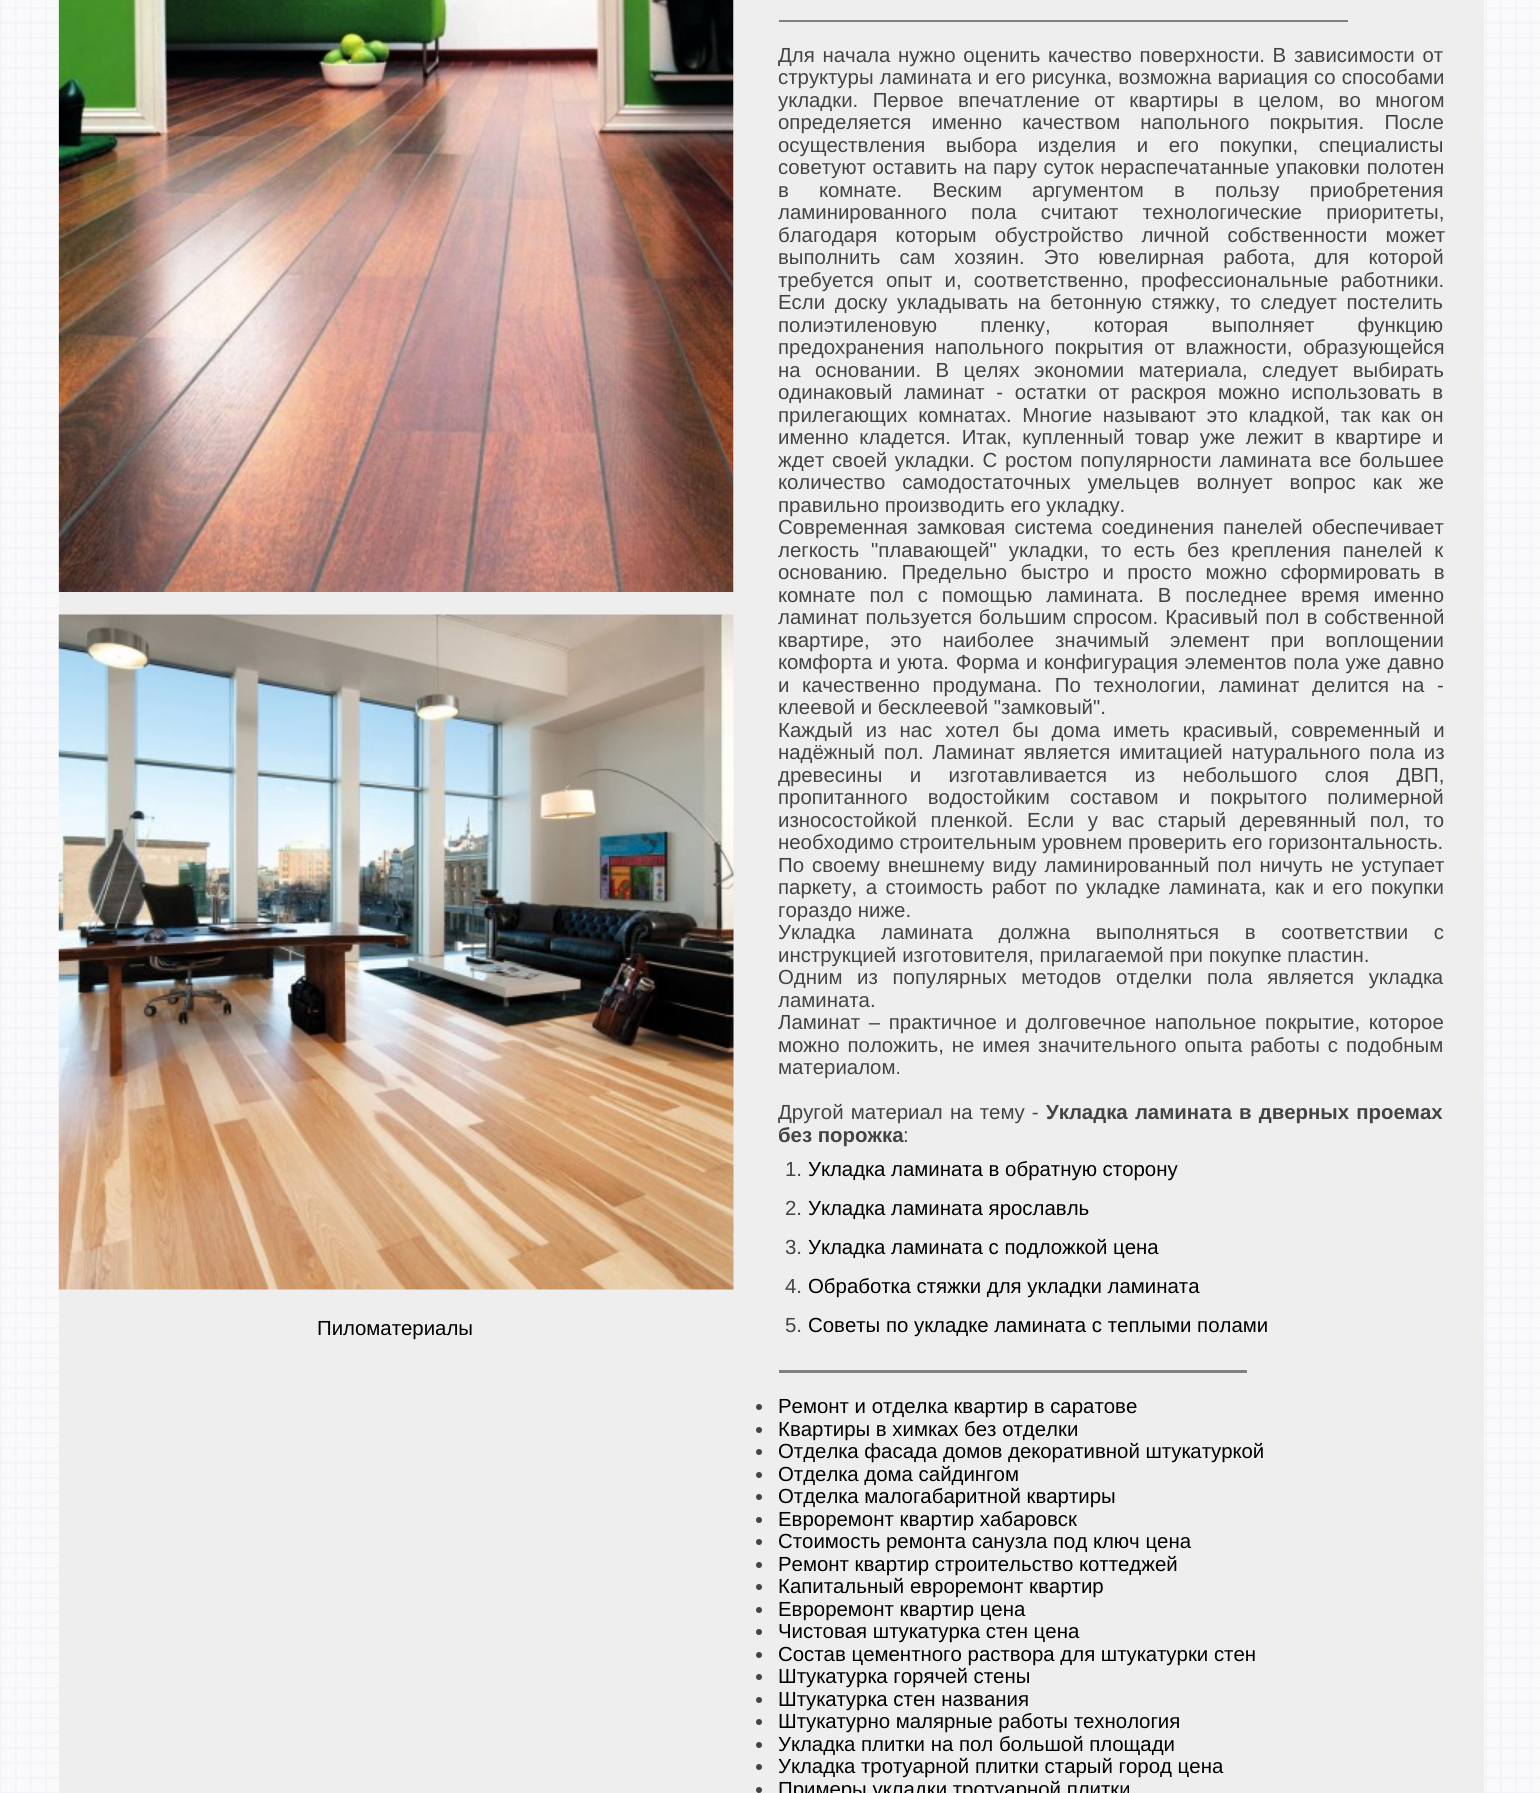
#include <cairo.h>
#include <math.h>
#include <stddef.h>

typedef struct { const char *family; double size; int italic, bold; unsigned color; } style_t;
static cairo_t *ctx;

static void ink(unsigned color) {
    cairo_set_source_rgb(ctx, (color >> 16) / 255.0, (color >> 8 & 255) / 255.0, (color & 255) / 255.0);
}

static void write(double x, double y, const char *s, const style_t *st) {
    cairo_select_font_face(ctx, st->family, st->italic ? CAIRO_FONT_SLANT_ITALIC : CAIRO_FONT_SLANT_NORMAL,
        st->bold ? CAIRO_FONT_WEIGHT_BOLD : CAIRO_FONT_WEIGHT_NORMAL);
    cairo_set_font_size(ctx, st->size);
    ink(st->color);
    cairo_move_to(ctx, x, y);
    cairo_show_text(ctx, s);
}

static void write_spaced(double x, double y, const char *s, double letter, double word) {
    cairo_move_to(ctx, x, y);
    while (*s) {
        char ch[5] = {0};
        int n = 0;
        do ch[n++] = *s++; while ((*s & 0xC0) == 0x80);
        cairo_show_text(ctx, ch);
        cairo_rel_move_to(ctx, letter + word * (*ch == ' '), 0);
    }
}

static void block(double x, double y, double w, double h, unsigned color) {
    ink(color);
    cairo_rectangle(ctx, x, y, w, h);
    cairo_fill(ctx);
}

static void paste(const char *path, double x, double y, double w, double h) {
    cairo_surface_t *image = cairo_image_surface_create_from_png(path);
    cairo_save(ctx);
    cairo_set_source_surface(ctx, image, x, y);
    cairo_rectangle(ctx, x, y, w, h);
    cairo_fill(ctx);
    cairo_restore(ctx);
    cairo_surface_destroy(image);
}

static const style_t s1 = {"Liberation Sans", 20.4, 0, 0, 0x000000};
static const style_t s2 = {"Liberation Sans", 20.4, 0, 0, 0x444444};
static const style_t s3 = {"Liberation Sans", 20.4, 0, 1, 0x444444};

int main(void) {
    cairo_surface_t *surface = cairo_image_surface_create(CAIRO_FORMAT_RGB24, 1540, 1793);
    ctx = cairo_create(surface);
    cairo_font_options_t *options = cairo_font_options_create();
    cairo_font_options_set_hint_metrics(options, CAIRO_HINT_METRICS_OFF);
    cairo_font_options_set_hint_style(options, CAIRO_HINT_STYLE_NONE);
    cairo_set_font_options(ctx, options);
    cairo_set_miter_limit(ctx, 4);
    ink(0xffffff);
    cairo_paint(ctx);
    paste("pic1.png", 0, 0, 1540, 1793);
    block(59, 0, 1425, 1793, 0xeeeeee);
    paste("pic2.png", 58, 0, 676, 592);
    paste("pic3.png", 58, 614, 676, 676);
    write(317, 1335, "Пиломатериалы", &s1);
    block(779, 20, 569, 2, 0x808080);
    ink(0x444444);
    write_spaced(778, 62, "Для начала нужно оценить качество поверхности. В зависимости от", 0, 2);
    write_spaced(778, 84, "структуры ламината и его рисунка, возможна вариация со способами", 0, 0.5);
    write_spaced(778, 107, "укладки. Первое впечатление от квартиры в целом, во многом", 0, 8.75);
    write_spaced(778, 129, "определяется именно качеством напольного покрытия. После", 0, 14.5);
    write_spaced(778, 152, "осуществления выбора изделия и его покупки, специалисты", 0, 15);
    write_spaced(778, 174, "советуют оставить на пару суток нераспечатанные упаковки полотен", 0, 1);
    write_spaced(778, 197, "в комнате. Веским аргументом в пользу приобретения", 0, 24.5);
    write_spaced(778, 219, "ламинированного пола считают технологические приоритеты,", 0, 18.5);
    write_spaced(778, 242, "благодаря которым обустройство личной собственности может", 0, 12.5);
    write_spaced(778, 264, "выполнить сам хозяин. Это ювелирная работа, для которой", 0, 13.5);
    write_spaced(778, 287, "требуется опыт и, соответственно, профессиональные работники.", 0, 6.5);
    write_spaced(778, 309, "Если доску укладывать на бетонную стяжку, то следует постелить", 0, 4);
    write_spaced(778, 332, "полиэтиленовую пленку, которая выполняет функцию", 0, 37.5);
    write_spaced(778, 354, "предохранения напольного покрытия от влажности, образующейся", 0, 5);
    write_spaced(778, 377, "на основании. В целях экономии материала, следует выбирать", 0, 8.75);
    write_spaced(778, 399, "одинаковый ламинат - остатки от раскроя можно использовать в", 0, 6);
    write_spaced(778, 422, "прилегающих комнатах. Многие называют это кладкой, так как он", 0, 5);
    write_spaced(778, 444, "именно кладется. Итак, купленный товар уже лежит в квартире и", 0, 5);
    write_spaced(778, 467, "ждет своей укладки. С ростом популярности ламината все большее", 0, 2);
    write_spaced(778, 489, "количество самодостаточных умельцев волнует вопрос как же", 0, 11.25);
    write(778, 512, "правильно производить его укладку.", &s2);
    write_spaced(778, 534, "Современная замковая система соединения панелей обеспечивает", 0, 3.5);
    write_spaced(778, 557, "легкость \"плавающей\" укладки, то есть без крепления панелей к", 0, 6.25);
    write_spaced(778, 579, "основанию. Предельно быстро и просто можно сформировать в", 0, 7.75);
    write_spaced(778, 602, "комнате пол с помощью ламината. В последнее время именно", 0, 8.25);
    write_spaced(778, 624, "ламинат пользуется большим спросом. Красивый пол в собственной", 0, 1.25);
    write_spaced(778, 647, "квартире, это наиболее значимый элемент при воплощении", 0, 15.25);
    write_spaced(778, 669, "комфорта и уюта. Форма и конфигурация элементов пола уже давно", 0, 1);
    write_spaced(778, 692, "и качественно продумана. По технологии, ламинат делится на -", 0, 7);
    write(778, 714, "клеевой и бесклеевой \"замковый\".", &s2);
    write_spaced(778, 737, "Каждый из нас хотел бы дома иметь красивый, современный и", 0, 7.25);
    write_spaced(778, 759, "надёжный пол. Ламинат является имитацией натурального пола из", 0, 3.25);
    write_spaced(778, 782, "древесины и изготавливается из небольшого слоя ДВП,", 0, 21.75);
    write_spaced(778, 804, "пропитанного водостойким составом и покрытого полимерной", 0, 14.5);
    write_spaced(778, 827, "износостойкой пленкой. Если у вас старый деревянный пол, то", 0, 8);
    write(778, 849, "необходимо строительным уровнем проверить его горизонтальность.", &s2);
    write_spaced(778, 872, "По своему внешнему виду ламинированный пол ничуть не уступает", 0, 2.25);
    write_spaced(778, 894, "паркету, а стоимость работ по укладке ламината, как и его покупки", 0, 2.75);
    write(778, 917, "гораздо ниже.", &s2);
    write_spaced(778, 939, "Укладка ламината должна выполняться в соответствии с", 0, 20);
    write(778, 962, "инструкцией изготовителя, прилагаемой при покупке пластин.", &s2);
    write_spaced(778, 984, "Одним из популярных методов отделки пола является укладка", 0, 9);
    write(778, 1007, "ламината.", &s2);
    write_spaced(778, 1029, "Ламинат – практичное и долговечное напольное покрытие, которое", 0, 3);
    write_spaced(778, 1052, "можно положить, не имея значительного опыта работы с подобным", 0, 2.25);
    write(778, 1074, "материалом.", &s2);
    write_spaced(778, 1119, "Другой материал на тему -", 0, 1.5);
    cairo_select_font_face(ctx, "Liberation Sans", CAIRO_FONT_SLANT_NORMAL, CAIRO_FONT_WEIGHT_BOLD);
    write_spaced(1046, 1119, "Укладка ламината в дверных проемах", 0, 1.5);
    write(778, 1142, "без порожка", &s3);
    write(903, 1142, ":", &s2);
    write(785, 1176, "1.", &s2);
    write(808, 1176, "Укладка ламината в обратную сторону", &s1);
    write(785, 1215, "2.", &s2);
    write(808, 1215, "Укладка ламината ярославль", &s1);
    write(785, 1254, "3.", &s2);
    write(808, 1254, "Укладка ламината с подложкой цена", &s1);
    write(785, 1293, "4.", &s2);
    write(808, 1293, "Обработка стяжки для укладки ламината", &s1);
    write(785, 1332, "5.", &s2);
    write(808, 1332, "Советы по укладке ламината с теплыми полами", &s1);
    block(779, 1370, 468, 3, 0x808080);
    ink(0x444444);
    cairo_new_path(ctx);
    cairo_arc(ctx, 759, 1407, 3, 0, 2 * M_PI);
    cairo_fill(ctx);
    write(778, 1413, "Ремонт и отделка квартир в саратове", &s1);
    ink(0x444444);
    cairo_new_path(ctx);
    cairo_arc(ctx, 759, 1430, 3, 0, 2 * M_PI);
    cairo_fill(ctx);
    write(778, 1436, "Квартиры в химках без отделки", &s1);
    ink(0x444444);
    cairo_new_path(ctx);
    cairo_arc(ctx, 759, 1452, 3, 0, 2 * M_PI);
    cairo_fill(ctx);
    write(778, 1458, "Отделка фасада домов декоративной штукатуркой", &s1);
    ink(0x444444);
    cairo_new_path(ctx);
    cairo_arc(ctx, 759, 1475, 3, 0, 2 * M_PI);
    cairo_fill(ctx);
    write(778, 1481, "Отделка дома сайдингом", &s1);
    ink(0x444444);
    cairo_new_path(ctx);
    cairo_arc(ctx, 759, 1497, 3, 0, 2 * M_PI);
    cairo_fill(ctx);
    write(778, 1503, "Отделка малогабаритной квартиры", &s1);
    ink(0x444444);
    cairo_new_path(ctx);
    cairo_arc(ctx, 759, 1520, 3, 0, 2 * M_PI);
    cairo_fill(ctx);
    write(778, 1526, "Евроремонт квартир хабаровск", &s1);
    ink(0x444444);
    cairo_new_path(ctx);
    cairo_arc(ctx, 759, 1542, 3, 0, 2 * M_PI);
    cairo_fill(ctx);
    write(778, 1548, "Стоимость ремонта санузла под ключ цена", &s1);
    ink(0x444444);
    cairo_new_path(ctx);
    cairo_arc(ctx, 759, 1565, 3, 0, 2 * M_PI);
    cairo_fill(ctx);
    write(778, 1571, "Ремонт квартир строительство коттеджей", &s1);
    ink(0x444444);
    cairo_new_path(ctx);
    cairo_arc(ctx, 759, 1587, 3, 0, 2 * M_PI);
    cairo_fill(ctx);
    write(778, 1593, "Капитальный евроремонт квартир", &s1);
    ink(0x444444);
    cairo_new_path(ctx);
    cairo_arc(ctx, 759, 1610, 3, 0, 2 * M_PI);
    cairo_fill(ctx);
    write(778, 1616, "Евроремонт квартир цена", &s1);
    ink(0x444444);
    cairo_new_path(ctx);
    cairo_arc(ctx, 759, 1632, 3, 0, 2 * M_PI);
    cairo_fill(ctx);
    write(778, 1638, "Чистовая штукатурка стен цена", &s1);
    ink(0x444444);
    cairo_new_path(ctx);
    cairo_arc(ctx, 759, 1655, 3, 0, 2 * M_PI);
    cairo_fill(ctx);
    write(778, 1661, "Состав цементного раствора для штукатурки стен", &s1);
    ink(0x444444);
    cairo_new_path(ctx);
    cairo_arc(ctx, 759, 1677, 3, 0, 2 * M_PI);
    cairo_fill(ctx);
    write(778, 1683, "Штукатурка горячей стены", &s1);
    ink(0x444444);
    cairo_new_path(ctx);
    cairo_arc(ctx, 759, 1700, 3, 0, 2 * M_PI);
    cairo_fill(ctx);
    write(778, 1706, "Штукатурка стен названия", &s1);
    ink(0x444444);
    cairo_new_path(ctx);
    cairo_arc(ctx, 759, 1722, 3, 0, 2 * M_PI);
    cairo_fill(ctx);
    write(778, 1728, "Штукатурно малярные работы технология", &s1);
    ink(0x444444);
    cairo_new_path(ctx);
    cairo_arc(ctx, 759, 1745, 3, 0, 2 * M_PI);
    cairo_fill(ctx);
    write(778, 1751, "Укладка плитки на пол большой площади", &s1);
    ink(0x444444);
    cairo_new_path(ctx);
    cairo_arc(ctx, 759, 1767, 3, 0, 2 * M_PI);
    cairo_fill(ctx);
    write(778, 1773, "Укладка тротуарной плитки старый город цена", &s1);
    ink(0x444444);
    cairo_new_path(ctx);
    cairo_arc(ctx, 759, 1790, 3, 0, 2 * M_PI);
    cairo_fill(ctx);
    write(778, 1796, "Примеры укладки тротуарной плитки", &s1);
    cairo_surface_write_to_png(surface, "screenshot.png");
    cairo_font_options_destroy(options);
    cairo_destroy(ctx);
    cairo_surface_destroy(surface);
    return 0;
}
